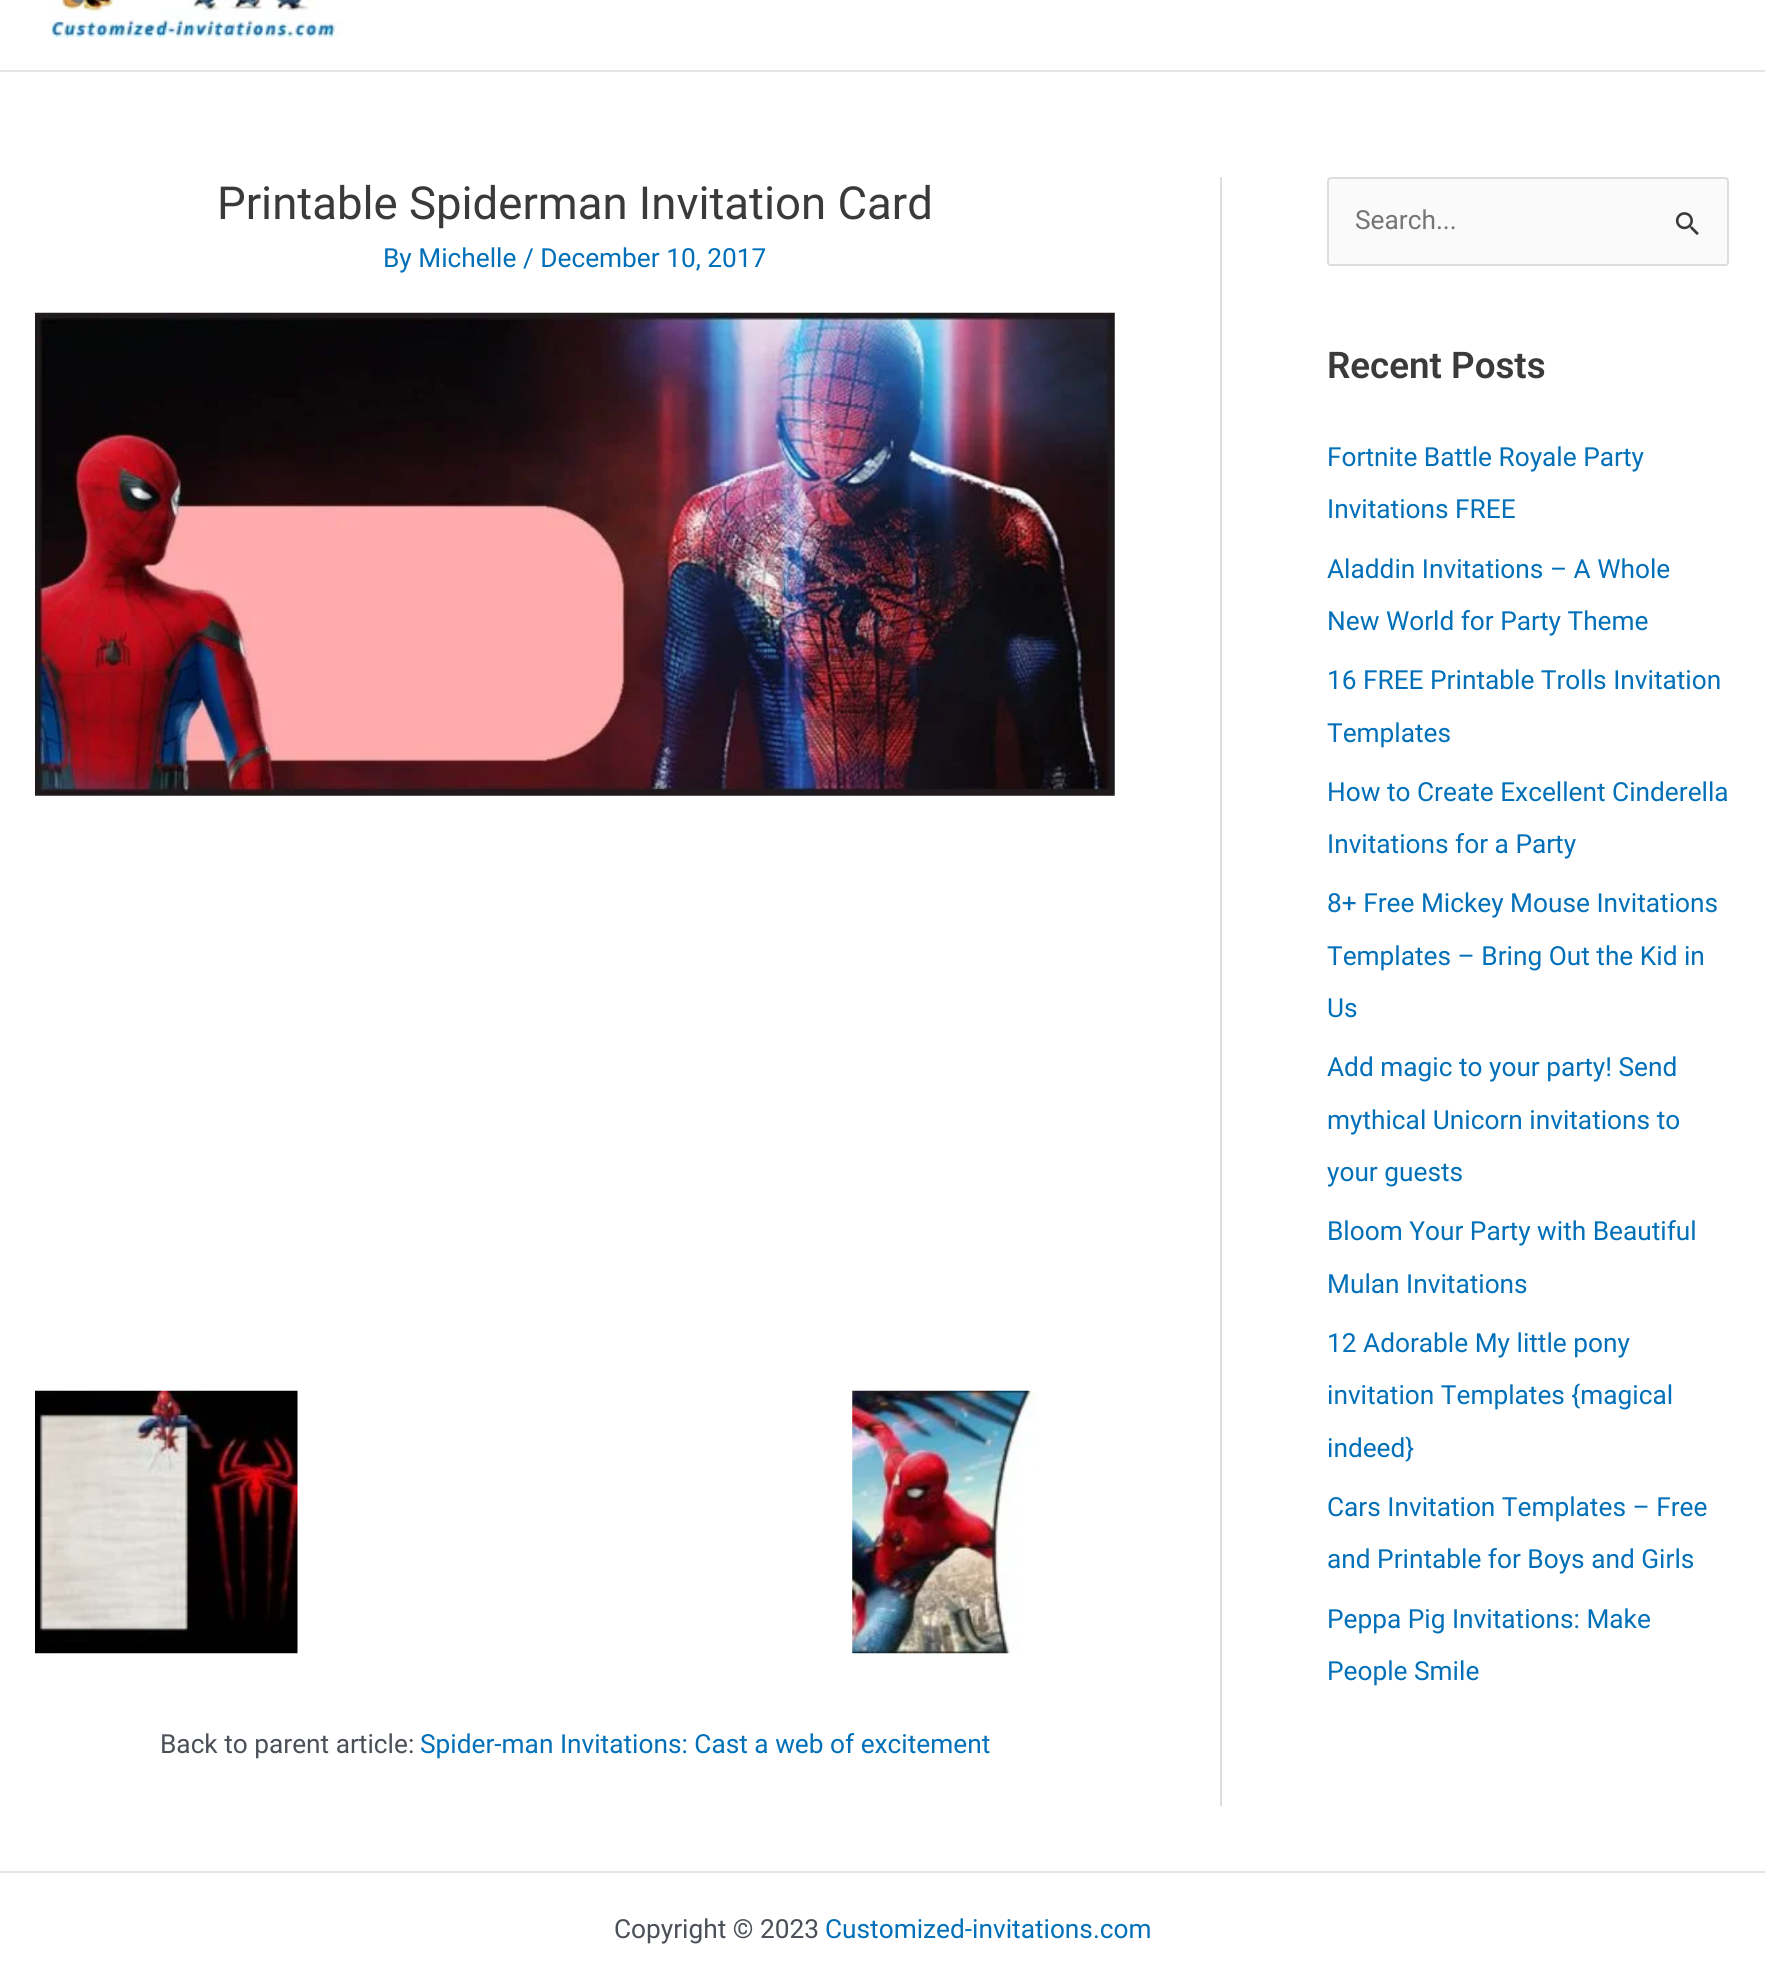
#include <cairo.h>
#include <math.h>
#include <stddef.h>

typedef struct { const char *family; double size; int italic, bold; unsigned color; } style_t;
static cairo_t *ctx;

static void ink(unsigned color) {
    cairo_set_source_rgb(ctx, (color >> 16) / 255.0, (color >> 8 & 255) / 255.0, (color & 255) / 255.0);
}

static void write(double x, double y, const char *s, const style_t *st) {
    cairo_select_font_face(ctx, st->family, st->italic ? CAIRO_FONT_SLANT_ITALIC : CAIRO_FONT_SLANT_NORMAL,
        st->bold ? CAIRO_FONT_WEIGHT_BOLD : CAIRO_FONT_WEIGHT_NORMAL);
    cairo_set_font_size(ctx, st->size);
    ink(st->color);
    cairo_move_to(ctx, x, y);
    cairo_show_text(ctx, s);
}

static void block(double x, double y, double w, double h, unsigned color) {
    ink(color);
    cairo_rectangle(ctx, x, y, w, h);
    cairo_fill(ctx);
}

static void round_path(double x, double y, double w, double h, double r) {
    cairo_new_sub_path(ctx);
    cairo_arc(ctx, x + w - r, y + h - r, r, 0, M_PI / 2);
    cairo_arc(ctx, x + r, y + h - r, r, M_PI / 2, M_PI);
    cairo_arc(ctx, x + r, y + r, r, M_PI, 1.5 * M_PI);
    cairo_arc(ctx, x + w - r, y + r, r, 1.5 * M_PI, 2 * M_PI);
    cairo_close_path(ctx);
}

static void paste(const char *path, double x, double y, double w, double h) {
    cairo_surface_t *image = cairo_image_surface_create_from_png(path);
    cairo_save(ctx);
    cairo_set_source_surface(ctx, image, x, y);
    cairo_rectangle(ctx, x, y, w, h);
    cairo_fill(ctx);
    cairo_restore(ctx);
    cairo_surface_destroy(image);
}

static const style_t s1 = {"Roboto", 45.5, 0, 0, 0x3a3a3a};
static const style_t s2 = {"Roboto", 26.25, 0, 0, 0x0170b9};
static const style_t s3 = {"Roboto", 26.25, 0, 0, 0x4b4f58};
static const style_t s4 = {"Roboto", 26.25, 0, 0, 0x757575};
static const style_t s5 = {"Roboto SemiBold", 36.75, 0, 0, 0x3a3a3a};

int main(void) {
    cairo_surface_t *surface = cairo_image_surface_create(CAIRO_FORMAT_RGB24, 1765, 1982);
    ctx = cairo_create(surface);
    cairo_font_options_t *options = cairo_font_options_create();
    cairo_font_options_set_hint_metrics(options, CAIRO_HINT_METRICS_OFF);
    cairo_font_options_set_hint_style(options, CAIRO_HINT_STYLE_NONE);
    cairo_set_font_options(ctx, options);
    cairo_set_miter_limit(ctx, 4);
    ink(0xffffff);
    cairo_paint(ctx);
    block(0, 70, 1765, 2, 0xe5e5e5);
    paste("pic1.png", 49, 0, 294, 39);
    write(217, 219, "Printable Spiderman Invitation Card", &s1);
    write(383, 267, "By Michelle / December 10, 2017", &s2);
    paste("pic2.png", 35, 312, 1080, 484);
    paste("pic3.png", 35, 1390, 263, 264);
    paste("pic4.png", 852, 1390, 185, 264);
    write(160, 1753, "Back to parent article:", &s3);
    write(420, 1753, "Spider-man Invitations: Cast a web of excitement", &s2);
    block(1220, 177, 2, 1629, 0xdddddd);
    ink(0xfafafa);
    round_path(1328, 178, 400, 87, 3);
    cairo_fill_preserve(ctx);
    ink(0xdddddd);
    cairo_stroke(ctx);
    write(1355, 229, "Search...", &s4);
    paste("pic5.png", 1675, 212, 24, 23);
    write(1327, 378, "Recent Posts", &s5);
    write(1327, 466, "Fortnite Battle Royale Party", &s2);
    write(1327, 518, "Invitations FREE", &s2);
    write(1327, 578, "Aladdin Invitations – A Whole", &s2);
    write(1327, 630, "New World for Party Theme", &s2);
    write(1327, 689, "16 FREE Printable Trolls Invitation", &s2);
    write(1327, 742, "Templates", &s2);
    write(1327, 801, "How to Create Excellent Cinderella", &s2);
    write(1327, 853, "Invitations for a Party", &s2);
    write(1327, 912, "8+ Free Mickey Mouse Invitations", &s2);
    write(1327, 965, "Templates – Bring Out the Kid in", &s2);
    write(1327, 1017, "Us", &s2);
    write(1327, 1076, "Add magic to your party! Send", &s2);
    write(1327, 1129, "mythical Unicorn invitations to", &s2);
    write(1327, 1181, "your guests", &s2);
    write(1327, 1240, "Bloom Your Party with Beautiful", &s2);
    write(1327, 1293, "Mulan Invitations", &s2);
    write(1327, 1352, "12 Adorable My little pony", &s2);
    write(1327, 1404, "invitation Templates {magical", &s2);
    write(1327, 1457, "indeed}", &s2);
    write(1327, 1516, "Cars Invitation Templates – Free", &s2);
    write(1327, 1568, "and Printable for Boys and Girls", &s2);
    write(1327, 1628, "Peppa Pig Invitations: Make", &s2);
    write(1327, 1680, "People Smile", &s2);
    block(0, 1871, 1765, 2, 0xe5e5e5);
    write(614, 1938, "Copyright © 2023", &s3);
    write(825, 1938, "Customized-invitations.com", &s2);
    cairo_surface_write_to_png(surface, "screenshot.png");
    cairo_font_options_destroy(options);
    cairo_destroy(ctx);
    cairo_surface_destroy(surface);
    return 0;
}
